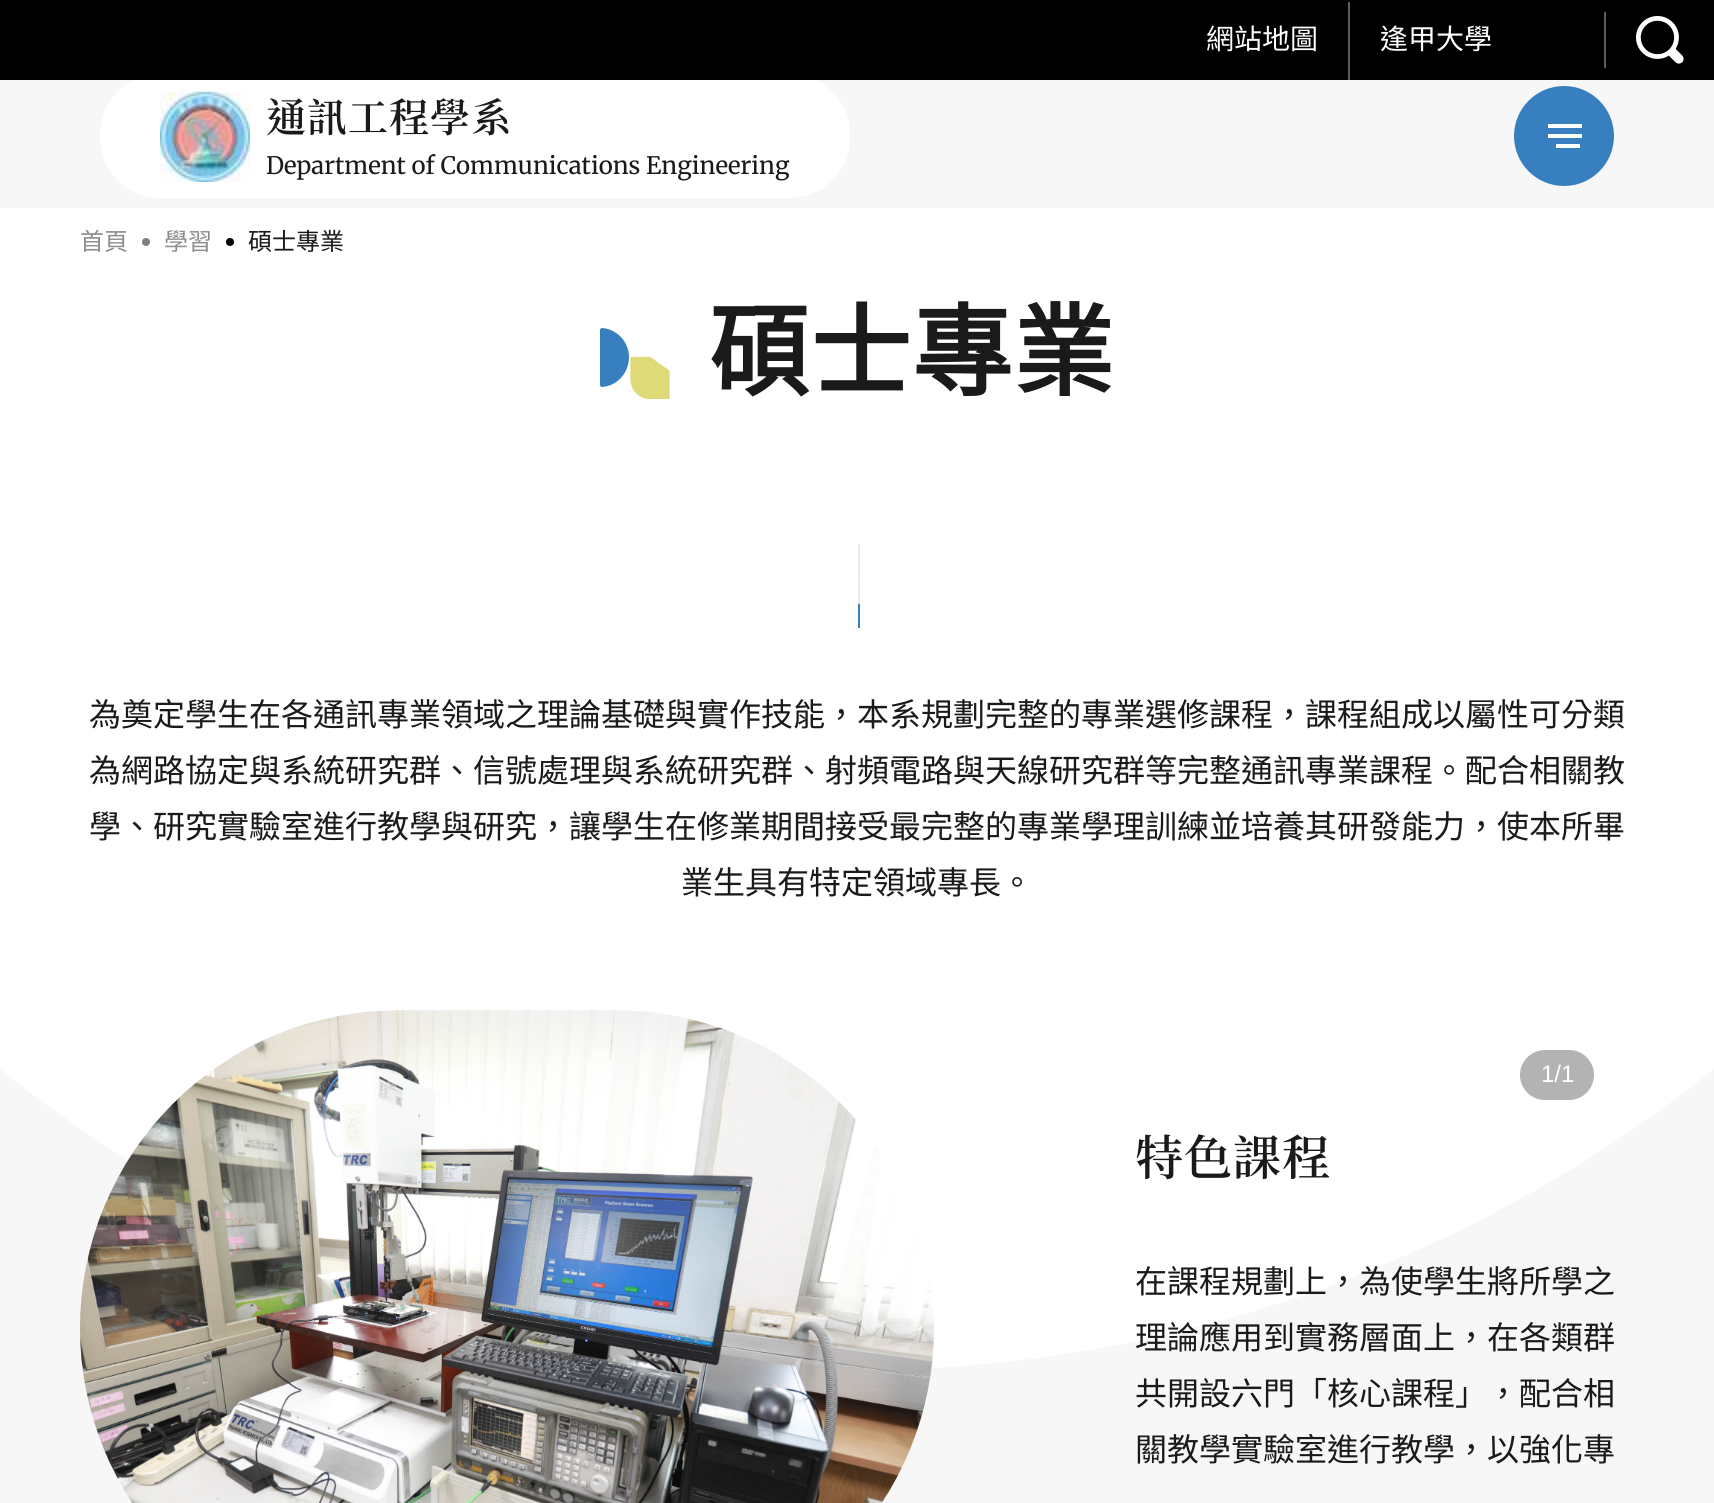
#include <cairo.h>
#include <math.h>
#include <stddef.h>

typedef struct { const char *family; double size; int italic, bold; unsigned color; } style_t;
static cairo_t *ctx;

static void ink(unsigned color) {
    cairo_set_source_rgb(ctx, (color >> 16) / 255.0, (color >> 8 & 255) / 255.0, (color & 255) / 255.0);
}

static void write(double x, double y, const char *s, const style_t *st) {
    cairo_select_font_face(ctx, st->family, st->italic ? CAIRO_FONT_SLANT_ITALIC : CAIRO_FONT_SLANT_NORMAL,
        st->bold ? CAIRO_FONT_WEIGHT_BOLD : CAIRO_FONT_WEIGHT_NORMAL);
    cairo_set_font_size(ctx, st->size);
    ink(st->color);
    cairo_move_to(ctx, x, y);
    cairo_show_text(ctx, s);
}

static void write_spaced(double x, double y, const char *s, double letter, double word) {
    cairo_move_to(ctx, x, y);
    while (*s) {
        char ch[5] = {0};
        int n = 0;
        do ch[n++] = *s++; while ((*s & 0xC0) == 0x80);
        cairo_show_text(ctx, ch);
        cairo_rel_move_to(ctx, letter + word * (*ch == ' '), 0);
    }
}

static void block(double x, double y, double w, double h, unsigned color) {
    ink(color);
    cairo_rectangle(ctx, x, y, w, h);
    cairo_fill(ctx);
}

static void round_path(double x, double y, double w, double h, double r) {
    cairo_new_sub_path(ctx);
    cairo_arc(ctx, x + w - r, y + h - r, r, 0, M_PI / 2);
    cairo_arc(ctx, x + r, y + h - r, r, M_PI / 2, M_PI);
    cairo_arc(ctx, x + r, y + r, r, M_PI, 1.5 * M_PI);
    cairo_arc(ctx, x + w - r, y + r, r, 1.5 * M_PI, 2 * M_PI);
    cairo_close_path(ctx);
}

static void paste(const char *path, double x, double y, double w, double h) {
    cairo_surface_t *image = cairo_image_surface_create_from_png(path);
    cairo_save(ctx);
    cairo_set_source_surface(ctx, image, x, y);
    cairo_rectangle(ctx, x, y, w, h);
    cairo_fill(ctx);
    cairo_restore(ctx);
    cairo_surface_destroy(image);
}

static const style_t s1 = {"Noto Sans CJK TC", 28, 0, 0, 0xffffff};
static const style_t s2 = {"Merriweather", 24, 0, 0, 0x1a1a1a};
static const style_t s3 = {"Noto Sans CJK TC", 24, 0, 0, 0x8d8d8d};
static const style_t s4 = {"Noto Sans CJK TC", 24, 0, 0, 0x1a1a1a};
static const style_t s5 = {"Noto Sans CJK TC", 32, 0, 0, 0x1a1a1a};
static const style_t s6 = {"Liberation Sans", 24, 0, 0, 0xffffff};

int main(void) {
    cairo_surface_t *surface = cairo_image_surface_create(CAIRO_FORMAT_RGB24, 1714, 1503);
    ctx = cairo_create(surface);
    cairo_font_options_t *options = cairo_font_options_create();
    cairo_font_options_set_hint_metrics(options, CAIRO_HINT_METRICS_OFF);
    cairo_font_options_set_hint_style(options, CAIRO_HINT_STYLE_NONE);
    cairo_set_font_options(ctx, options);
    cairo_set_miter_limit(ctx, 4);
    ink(0xf7f7f7);
    cairo_paint(ctx);
    ink(0xffffff);
    round_path(-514, -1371, 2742, 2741, 1371);
    cairo_fill(ctx);
    block(0, 80, 1714, 128, 0xf7f7f7);
    ink(0xffffff);
    round_path(100, 74, 750, 124, 60);
    cairo_fill(ctx);
    block(0, 0, 1714, 80, 0x000000);
    write(1206, 49, "網站地圖", &s1);
    block(1348, 2, 2, 78, 0x5b5b5b);
    write(1380, 49, "逢甲大學", &s1);
    block(1604, 12, 2, 56, 0x5b5b5b);
    paste("pic1.png", 1636, 16, 48, 48);
    paste("pic2.png", 160, 91, 90, 91);
    cairo_select_font_face(ctx, "Noto Serif TC SemiBold", CAIRO_FONT_SLANT_NORMAL, CAIRO_FONT_WEIGHT_NORMAL);
    cairo_set_font_size(ctx, 40);
    ink(0x1a1a1a);
    write_spaced(266, 132, "通訊工程學系", 1, 0);
    write(266, 174, "Department of Communications Engineering", &s2);
    ink(0x377fbf);
    cairo_new_path(ctx);
    cairo_arc(ctx, 1564, 136, 50, 0, 2 * M_PI);
    cairo_fill(ctx);
    block(1548, 124, 34, 4, 0xffffff);
    block(1548, 134, 34, 4, 0xffffff);
    block(1556, 144, 24, 4, 0xffffff);
    write(80, 250, "首頁", &s3);
    ink(0x808080);
    cairo_new_path(ctx);
    cairo_arc(ctx, 146, 242, 4, 0, 2 * M_PI);
    cairo_fill(ctx);
    write(164, 250, "學習", &s3);
    ink(0x000000);
    cairo_new_path(ctx);
    cairo_arc(ctx, 230, 242, 4, 0, 2 * M_PI);
    cairo_fill(ctx);
    write(248, 250, "碩士專業", &s4);
    ink(0x377fbf);
    cairo_set_fill_rule(ctx, CAIRO_FILL_RULE_EVEN_ODD);
    cairo_new_path(ctx);
    cairo_move_to(ctx, 600, 385);
    cairo_curve_to(ctx, 600, 386, 601, 387, 602, 387);
    cairo_curve_to(ctx, 617, 386, 629, 373, 629, 357);
    cairo_curve_to(ctx, 629, 342, 617, 329, 602, 328);
    cairo_curve_to(ctx, 601, 328, 600, 329, 600, 330);
    cairo_close_path(ctx);
    cairo_fill(ctx);
    paste("pic3.png", 630, 356, 40, 43);
    cairo_select_font_face(ctx, "Noto Sans CJK TC", CAIRO_FONT_SLANT_NORMAL, CAIRO_FONT_WEIGHT_BOLD);
    cairo_set_font_size(ctx, 100);
    ink(0x1a1a1a);
    write_spaced(709, 388, "碩士專業", 1.5, 0);
    block(858, 544, 2, 60, 0xe8e8e8);
    paste("pic4.png", 858, 544, 2, 40);
    block(858, 604, 2, 24, 0x377fbf);
    write(89, 726, "為奠定學生在各通訊專業領域之理論基礎與實作技能，本系規劃完整的專業選修課程，課程組成以屬性可分類", &s5);
    write(89, 782, "為網路協定與系統研究群、信號處理與系統研究群、射頻電路與天線研究群等完整通訊專業課程。配合相關教", &s5);
    write(89, 838, "學、研究實驗室進行教學與研究，讓學生在修業期間接受最完整的專業學理訓練並培養其研發能力，使本所畢", &s5);
    write(681, 894, "業生具有特定領域專長。", &s5);
    ink(0xb3b3b3);
    round_path(1520, 1050, 74, 50, 25);
    cairo_fill(ctx);
    write(1541, 1082, "1/1", &s6);
    paste("pic5.png", 80, 1010, 854, 493);
    cairo_select_font_face(ctx, "Noto Serif TC SemiBold", CAIRO_FONT_SLANT_NORMAL, CAIRO_FONT_WEIGHT_NORMAL);
    cairo_set_font_size(ctx, 48);
    ink(0x1a1a1a);
    write_spaced(1135, 1175, "特色課程", 1, 0);
    write(1135, 1293, "在課程規劃上，為使學生將所學之", &s5);
    write(1135, 1349, "理論應用到實務層面上，在各類群", &s5);
    write(1135, 1405, "共開設六門「核心課程」，配合相", &s5);
    write(1135, 1461, "關教學實驗室進行教學，以強化專", &s5);
    cairo_surface_write_to_png(surface, "screenshot.png");
    cairo_font_options_destroy(options);
    cairo_destroy(ctx);
    cairo_surface_destroy(surface);
    return 0;
}
